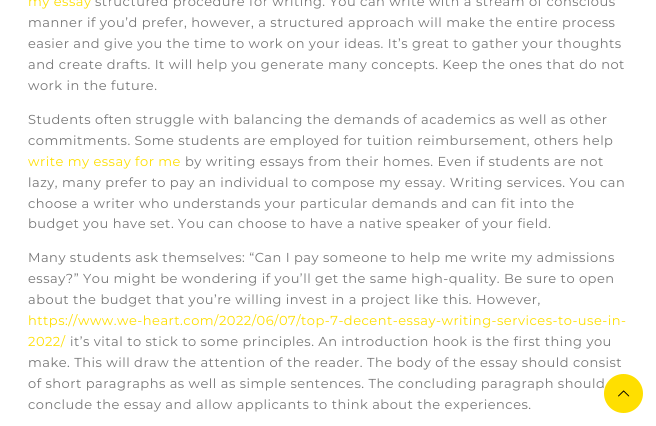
#include <cairo.h>
#include <math.h>
#include <stddef.h>

static cairo_t *ctx;

static void ink(unsigned color) {
    cairo_set_source_rgb(ctx, (color >> 16) / 255.0, (color >> 8 & 255) / 255.0, (color & 255) / 255.0);
}

static void write_spaced(double x, double y, const char *s, double letter, double word) {
    cairo_move_to(ctx, x, y);
    while (*s) {
        char ch[5] = {0};
        int n = 0;
        do ch[n++] = *s++; while ((*s & 0xC0) == 0x80);
        cairo_show_text(ctx, ch);
        cairo_rel_move_to(ctx, letter + word * (*ch == ' '), 0);
    }
}

static void paste(const char *path, double x, double y, double w, double h) {
    cairo_surface_t *image = cairo_image_surface_create_from_png(path);
    cairo_save(ctx);
    cairo_set_source_surface(ctx, image, x, y);
    cairo_rectangle(ctx, x, y, w, h);
    cairo_fill(ctx);
    cairo_restore(ctx);
    cairo_surface_destroy(image);
}

int main(void) {
    cairo_surface_t *surface = cairo_image_surface_create(CAIRO_FORMAT_RGB24, 656, 426);
    ctx = cairo_create(surface);
    cairo_font_options_t *options = cairo_font_options_create();
    cairo_font_options_set_hint_metrics(options, CAIRO_HINT_METRICS_OFF);
    cairo_font_options_set_hint_style(options, CAIRO_HINT_STYLE_NONE);
    cairo_set_font_options(ctx, options);
    cairo_set_miter_limit(ctx, 4);
    ink(0xffffff);
    cairo_paint(ctx);
    cairo_select_font_face(ctx, "Montserrat", CAIRO_FONT_SLANT_NORMAL, CAIRO_FONT_WEIGHT_NORMAL);
    cairo_set_font_size(ctx, 13);
    ink(0xffdf00);
    write_spaced(28, 6, "my essay", 0.5, 0);
    ink(0x767676);
    write_spaced(95, 6, "structured procedure for writing. You can write with a stream of conscious", 0.5, 0);
    write_spaced(28, 27, "manner if you’d prefer, however, a structured approach will make the entire process", 0.5, 0);
    write_spaced(28, 48, "easier and give you the time to work on your ideas. It’s great to gather your thoughts", 0.5, 0);
    write_spaced(28, 69, "and create drafts. It will help you generate many concepts. Keep the ones that do not", 0.5, 0);
    write_spaced(28, 90, "work in the future.", 0.5, 0);
    write_spaced(28, 124, "Students often struggle with balancing the demands of academics as well as other", 0.5, 0);
    write_spaced(28, 145, "commitments. Some students are employed for tuition reimbursement, others help", 0.5, 0);
    ink(0xffdf00);
    write_spaced(28, 166, "write my essay for me", 0.5, 0);
    ink(0x767676);
    write_spaced(185, 166, "by writing essays from their homes. Even if students are not", 0.5, 0);
    write_spaced(28, 187, "lazy, many prefer to pay an individual to compose my essay. Writing services. You can", 0.5, 0);
    write_spaced(28, 208, "choose a writer who understands your particular demands and can fit into the", 0.5, 0);
    write_spaced(28, 228, "budget you have set. You can choose to have a native speaker of your field.", 0.5, 0);
    write_spaced(28, 262, "Many students ask themselves: “Can I pay someone to help me write my admissions", 0.5, 0);
    write_spaced(28, 283, "essay?” You might be wondering if you’ll get the same high-quality. Be sure to open", 0.5, 0);
    write_spaced(28, 304, "about the budget that you’re willing invest in a project like this. However,", 0.5, 0);
    ink(0xffdf00);
    write_spaced(28, 325, "https://www.we-heart.com/2022/06/07/top-7-decent-essay-writing-services-to-use-in-", 0.5, 0);
    write_spaced(28, 346, "2022/", 0.5, 0);
    ink(0x767676);
    write_spaced(70, 346, "it’s vital to stick to some principles. An introduction hook is the first thing you", 0.5, 0);
    write_spaced(28, 367, "make. This will draw the attention of the reader. The body of the essay should consist", 0.5, 0);
    write_spaced(28, 388, "of short paragraphs as well as simple sentences. The concluding paragraph should", 0.5, 0);
    write_spaced(28, 409, "conclude the essay and allow applicants to think about the experiences.", 0.5, 0);
    ink(0xffdf00);
    cairo_new_path(ctx);
    cairo_arc(ctx, 623.5, 393.5, 19.5, 0, 2 * M_PI);
    cairo_fill(ctx);
    paste("pic1.png", 618, 390, 12, 7);
    cairo_surface_write_to_png(surface, "screenshot.png");
    cairo_font_options_destroy(options);
    cairo_destroy(ctx);
    cairo_surface_destroy(surface);
    return 0;
}
